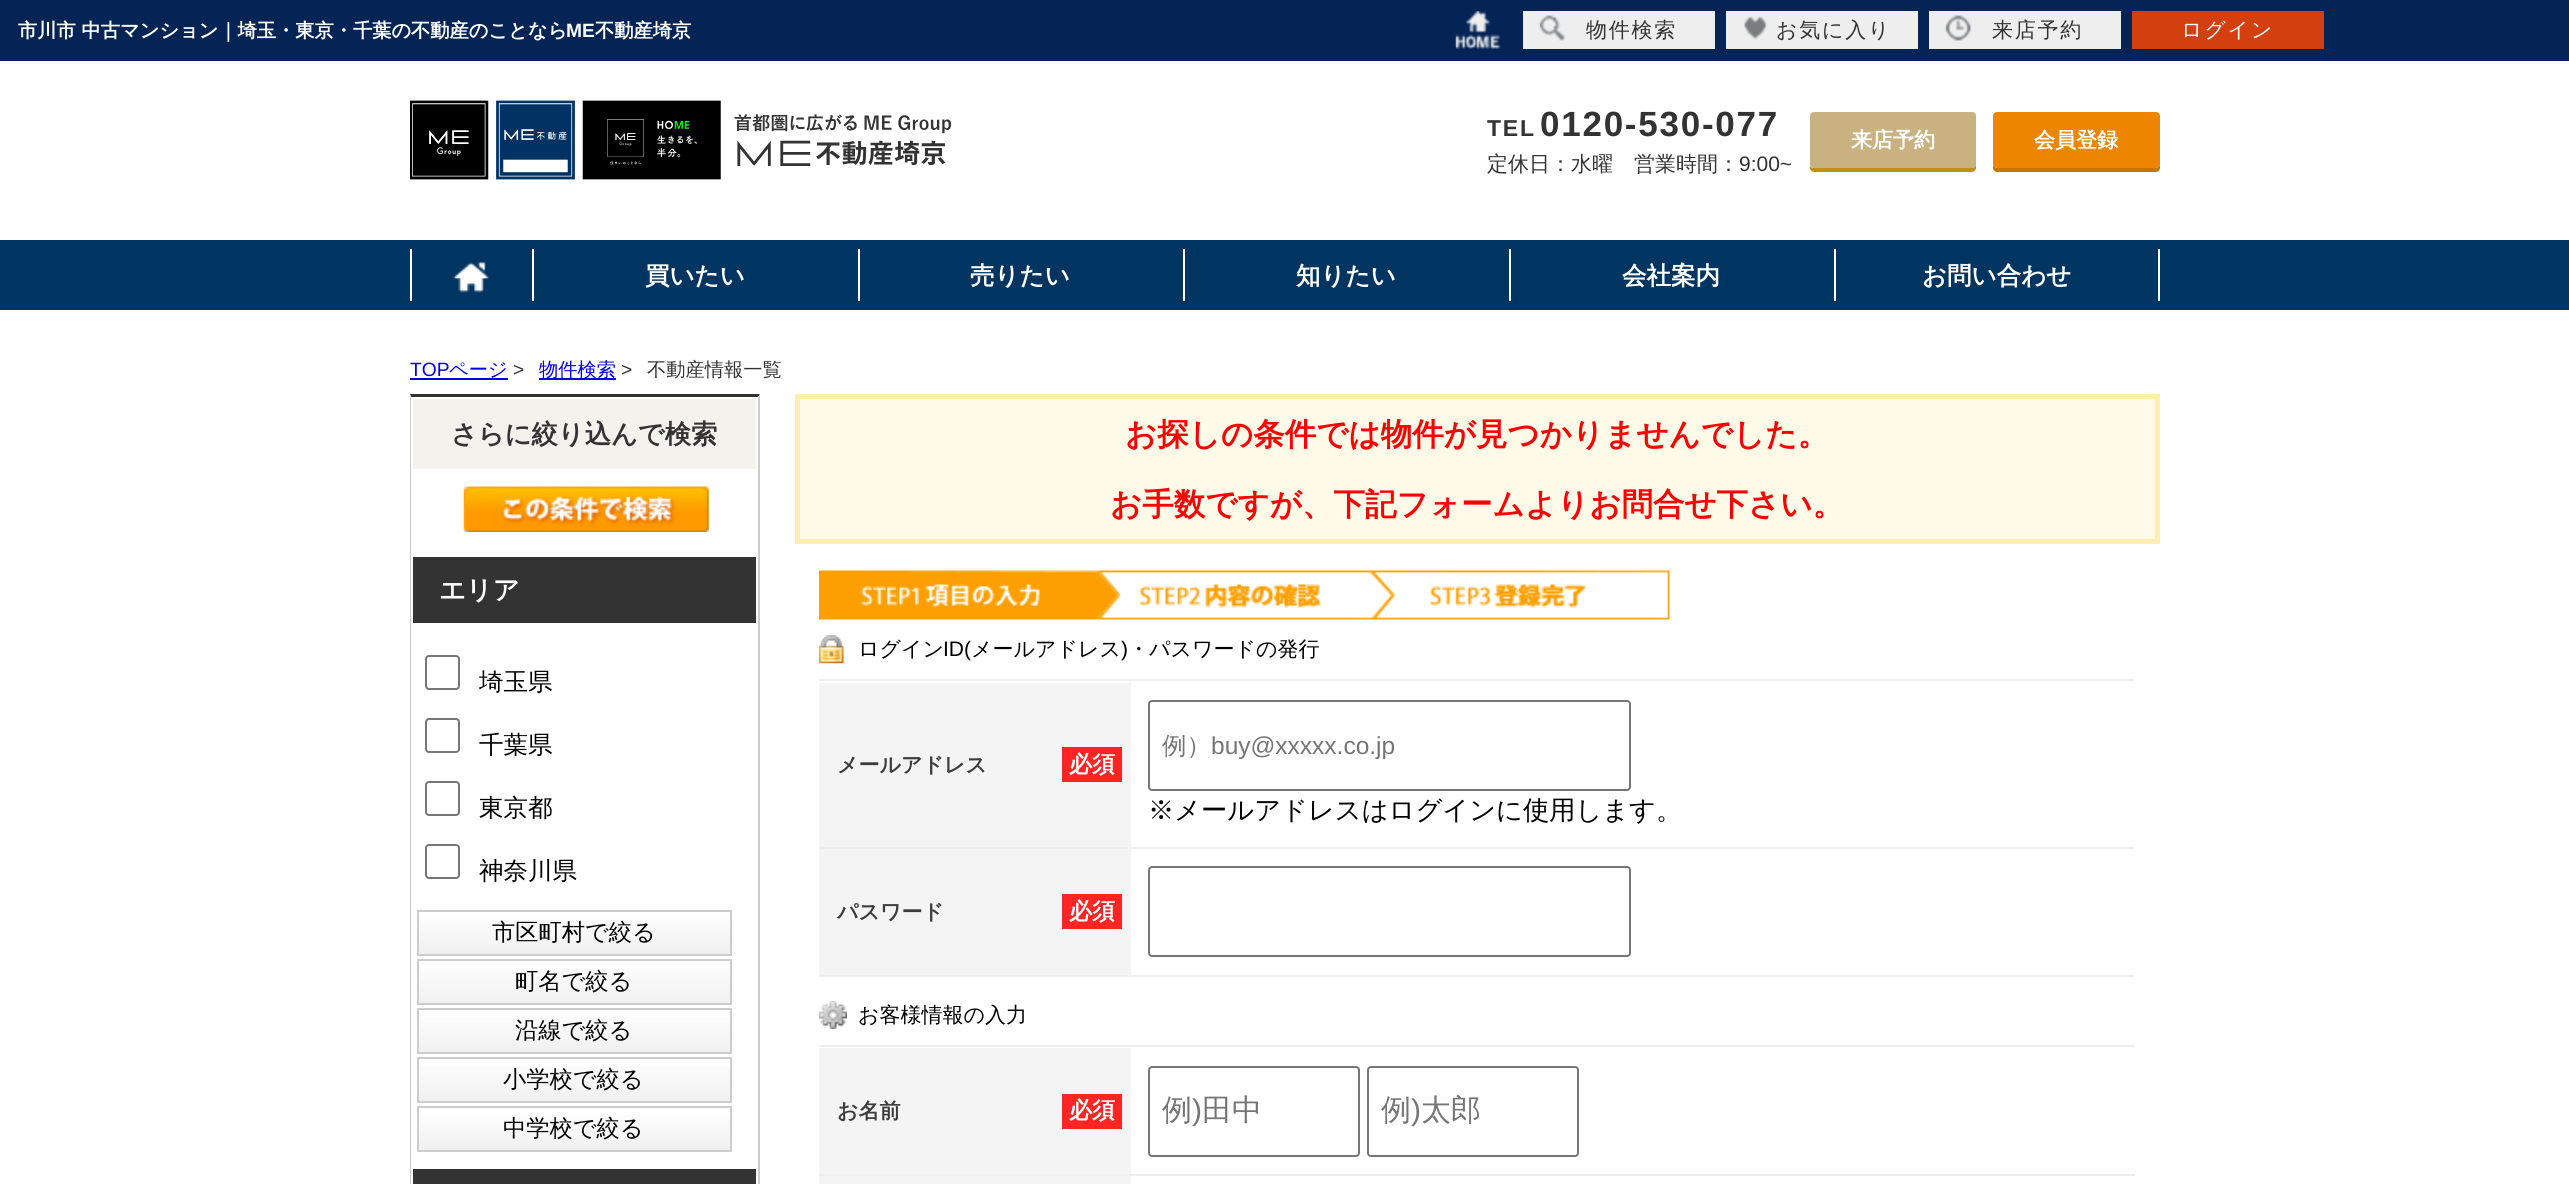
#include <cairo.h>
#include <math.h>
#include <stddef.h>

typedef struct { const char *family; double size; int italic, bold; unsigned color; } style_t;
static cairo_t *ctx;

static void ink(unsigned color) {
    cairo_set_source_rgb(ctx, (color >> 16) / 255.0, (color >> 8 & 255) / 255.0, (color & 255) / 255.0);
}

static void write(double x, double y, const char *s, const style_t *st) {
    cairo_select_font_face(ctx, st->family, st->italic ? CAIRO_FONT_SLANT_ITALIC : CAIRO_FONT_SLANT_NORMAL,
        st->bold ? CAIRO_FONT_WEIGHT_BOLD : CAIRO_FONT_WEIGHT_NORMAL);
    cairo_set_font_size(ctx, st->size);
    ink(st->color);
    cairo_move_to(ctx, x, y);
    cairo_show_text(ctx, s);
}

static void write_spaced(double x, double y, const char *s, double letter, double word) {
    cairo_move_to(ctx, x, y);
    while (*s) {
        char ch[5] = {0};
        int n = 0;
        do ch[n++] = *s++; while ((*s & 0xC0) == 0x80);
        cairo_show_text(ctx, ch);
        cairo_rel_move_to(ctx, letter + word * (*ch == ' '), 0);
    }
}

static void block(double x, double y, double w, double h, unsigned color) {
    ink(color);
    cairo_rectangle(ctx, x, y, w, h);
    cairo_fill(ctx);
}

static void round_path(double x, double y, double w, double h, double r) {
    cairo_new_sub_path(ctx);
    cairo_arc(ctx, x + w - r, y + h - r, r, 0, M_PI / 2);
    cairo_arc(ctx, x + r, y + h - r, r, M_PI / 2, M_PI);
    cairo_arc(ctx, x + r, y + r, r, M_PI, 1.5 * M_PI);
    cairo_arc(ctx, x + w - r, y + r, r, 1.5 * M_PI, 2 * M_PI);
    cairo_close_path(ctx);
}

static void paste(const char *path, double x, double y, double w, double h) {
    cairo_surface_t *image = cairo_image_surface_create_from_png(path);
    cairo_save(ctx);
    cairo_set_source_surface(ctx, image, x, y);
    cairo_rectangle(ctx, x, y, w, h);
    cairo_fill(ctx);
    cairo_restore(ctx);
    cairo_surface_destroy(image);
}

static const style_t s1 = {"WenQuanYi Zen Hei", 19.25, 0, 1, 0xffffff};
static const style_t s2 = {"Liberation Sans", 19.25, 0, 1, 0xffffff};
static const style_t s3 = {"WenQuanYi Zen Hei Medium", 21, 0, 0, 0x333333};
static const style_t s4 = {"Liberation Sans", 21, 0, 0, 0x333333};
static const style_t s5 = {"WenQuanYi Zen Hei", 21, 0, 1, 0xffffff};
static const style_t s6 = {"WenQuanYi Zen Hei", 24.5, 0, 1, 0xffffff};
static const style_t s7 = {"Liberation Sans", 19.25, 0, 0, 0x0000ee};
static const style_t s8 = {"WenQuanYi Zen Hei Medium", 19.25, 0, 0, 0x0000ee};
static const style_t s9 = {"Liberation Sans", 19.25, 0, 0, 0x333333};
static const style_t s10 = {"WenQuanYi Zen Hei Medium", 19.25, 0, 0, 0x333333};
static const style_t s11 = {"WenQuanYi Zen Hei", 26.25, 0, 1, 0x333333};
static const style_t s12 = {"WenQuanYi Zen Hei", 26.25, 0, 1, 0xffffff};
static const style_t s13 = {"WenQuanYi Zen Hei Medium", 24.5, 0, 0, 0x000000};
static const style_t s14 = {"WenQuanYi Zen Hei Medium", 23.25, 0, 0, 0x000000};
static const style_t s15 = {"WenQuanYi Zen Hei", 31.5, 0, 1, 0xff0000};
static const style_t s16 = {"WenQuanYi Zen Hei Medium", 21, 0, 0, 0x000000};
static const style_t s17 = {"Liberation Sans", 21, 0, 0, 0x000000};
static const style_t s18 = {"WenQuanYi Zen Hei", 21, 0, 1, 0x3c3c3c};
static const style_t s19 = {"WenQuanYi Zen Hei", 23, 0, 1, 0xffffff};
static const style_t s20 = {"WenQuanYi Zen Hei Medium", 24.5, 0, 0, 0x757575};
static const style_t s21 = {"Liberation Sans", 24.5, 0, 0, 0x757575};
static const style_t s22 = {"WenQuanYi Zen Hei Medium", 26.25, 0, 0, 0x000000};
static const style_t s23 = {"WenQuanYi Zen Hei Medium", 30, 0, 0, 0x757575};
static const style_t s24 = {"Liberation Sans", 30, 0, 0, 0x757575};

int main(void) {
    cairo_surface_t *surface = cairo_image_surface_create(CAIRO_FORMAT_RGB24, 2569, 1184);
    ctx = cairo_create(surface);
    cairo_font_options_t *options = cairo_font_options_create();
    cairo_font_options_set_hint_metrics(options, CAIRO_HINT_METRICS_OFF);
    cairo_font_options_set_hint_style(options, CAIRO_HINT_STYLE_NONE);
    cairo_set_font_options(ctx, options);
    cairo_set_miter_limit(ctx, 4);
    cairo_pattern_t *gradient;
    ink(0xffffff);
    cairo_paint(ctx);
    block(0, 0, 2569, 61, 0x042455);
    write(18, 37, "市川市 中古マンション｜埼玉・東京・千葉の不動産のことなら", &s1);
    write(566, 37, "ME", &s2);
    write(595, 37, "不動産埼京", &s1);
    paste("pic1.png", 1455, 11, 46, 38);
    block(1523, 11, 192, 38, 0xeeeeee);
    paste("pic2.png", 1539, 15, 27, 26);
    cairo_select_font_face(ctx, "WenQuanYi Zen Hei Medium", CAIRO_FONT_SLANT_NORMAL, CAIRO_FONT_WEIGHT_NORMAL);
    cairo_set_font_size(ctx, 21);
    ink(0x333333);
    write_spaced(1586, 37, "物件検索", 1.75, 0);
    block(1726, 11, 192, 38, 0xeeeeee);
    paste("pic3.png", 1744, 16, 23, 24);
    ink(0x333333);
    write_spaced(1776, 37, "お気に入り", 1.75, 0);
    block(1929, 11, 192, 38, 0xeeeeee);
    paste("pic4.png", 1945, 15, 26, 26);
    ink(0x333333);
    write_spaced(1992, 37, "来店予約", 1.75, 0);
    block(2132, 11, 192, 38, 0xd33f0e);
    ink(0xffffff);
    write_spaced(2181, 37, "ログイン", 1.75, 0);
    paste("pic5.png", 410, 100, 542, 80);
    cairo_select_font_face(ctx, "Liberation Sans", CAIRO_FONT_SLANT_NORMAL, CAIRO_FONT_WEIGHT_BOLD);
    cairo_set_font_size(ctx, 23);
    ink(0x333333);
    write_spaced(1487, 136, "TEL", 1.75, 0);
    cairo_set_font_size(ctx, 35);
    write_spaced(1540, 136, "0120-530-077", 1.75, 0);
    write(1487, 171, "定休日：水曜　営業時間：", &s3);
    write(1739, 171, "9:00~", &s4);
    ink(0xc29015);
    cairo_new_path(ctx);
    cairo_move_to(ctx, 1810, 166);
    cairo_line_to(ctx, 1810, 168);
    cairo_curve_to(ctx, 1810, 170, 1812, 172, 1814, 172);
    cairo_line_to(ctx, 1972, 172);
    cairo_curve_to(ctx, 1974, 172, 1976, 170, 1976, 168);
    cairo_line_to(ctx, 1976, 119);
    cairo_line_to(ctx, 1976, 164);
    cairo_curve_to(ctx, 1976, 166, 1974, 168, 1972, 168);
    cairo_line_to(ctx, 1813, 168);
    cairo_curve_to(ctx, 1812, 168, 1811, 167, 1810, 166);
    cairo_close_path(ctx);
    cairo_fill(ctx);
    ink(0xcab280);
    round_path(1810, 112, 166, 56, 4);
    cairo_fill(ctx);
    write(1851, 147, "来店予約", &s5);
    ink(0xc97402);
    cairo_new_path(ctx);
    cairo_move_to(ctx, 1993, 119);
    cairo_line_to(ctx, 1993, 168);
    cairo_curve_to(ctx, 1993, 170, 1995, 172, 1997, 172);
    cairo_line_to(ctx, 2156, 172);
    cairo_curve_to(ctx, 2158, 172, 2160, 170, 2160, 168);
    cairo_line_to(ctx, 2160, 120);
    cairo_line_to(ctx, 2160, 118);
    cairo_line_to(ctx, 2160, 164);
    cairo_curve_to(ctx, 2160, 166, 2158, 168, 2156, 168);
    cairo_line_to(ctx, 1997, 168);
    cairo_curve_to(ctx, 1995, 168, 1993, 166, 1993, 164);
    cairo_close_path(ctx);
    cairo_fill(ctx);
    ink(0xee8501);
    round_path(1993, 112, 167, 56, 4);
    cairo_fill(ctx);
    write(2034, 147, "会員登録", &s5);
    block(0, 240, 2569, 70, 0x003461);
    block(410, 249, 2, 52, 0xffffff);
    paste("pic6.png", 453, 262, 36, 31);
    block(532, 249, 2, 52, 0xffffff);
    write(645, 284, "買いたい", &s6);
    block(858, 249, 2, 52, 0xffffff);
    write(970, 284, "売りたい", &s6);
    block(1183, 249, 2, 52, 0xffffff);
    write(1296, 284, "知りたい", &s6);
    block(1509, 249, 2, 52, 0xffffff);
    write(1622, 284, "会社案内", &s6);
    block(1834, 249, 2, 52, 0xffffff);
    write(1922, 284, "お問い合わせ", &s6);
    block(2158, 249, 2, 52, 0xffffff);
    write(410, 376, "TOP", &s7);
    write(449, 376, "ページ", &s8);
    block(410, 378, 98, 2, 0x0000ee);
    write(513, 376, ">", &s9);
    block(539, 378, 77, 2, 0x0000ee);
    write(539, 376, "物件検索", &s8);
    write(621, 376, ">", &s9);
    write(647, 376, "不動産情報一覧", &s10);
    cairo_new_path(ctx);
    cairo_move_to(ctx, 410, 394);
    cairo_line_to(ctx, 760, 394);
    cairo_line_to(ctx, 758, 397);
    cairo_line_to(ctx, 411, 397);
    cairo_close_path(ctx);
    cairo_fill(ctx);
    ink(0xcccccc);
    cairo_new_path(ctx);
    cairo_move_to(ctx, 760, 394);
    cairo_line_to(ctx, 760, 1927);
    cairo_line_to(ctx, 758, 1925);
    cairo_line_to(ctx, 758, 397);
    cairo_close_path(ctx);
    cairo_fill(ctx);
    cairo_new_path(ctx);
    cairo_move_to(ctx, 410, 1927);
    cairo_line_to(ctx, 410, 394);
    cairo_line_to(ctx, 411, 397);
    cairo_line_to(ctx, 411, 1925);
    cairo_close_path(ctx);
    cairo_fill(ctx);
    block(413, 399, 343, 70, 0xf3f2ed);
    write(451, 443, "さらに絞り込んで検索", &s11);
    paste("pic7.png", 463, 486, 246, 46);
    block(413, 557, 343, 66, 0x333333);
    write(439, 599, "エリア", &s12);
    round_path(426, 656, 33, 33, 3);
    ink(0x767676);
    cairo_stroke(ctx);
    write(479, 690, "埼玉県", &s13);
    round_path(426, 719, 33, 33, 3);
    ink(0x767676);
    cairo_stroke(ctx);
    write(479, 753, "千葉県", &s13);
    round_path(426, 782, 33, 33, 3);
    ink(0x767676);
    cairo_stroke(ctx);
    write(479, 816, "東京都", &s13);
    round_path(426, 845, 33, 33, 3);
    ink(0x767676);
    cairo_stroke(ctx);
    write(479, 879, "神奈川県", &s13);
    gradient = cairo_pattern_create_linear(418, 912, 418, 954);
    cairo_pattern_add_color_stop_rgba(gradient, 0, 1, 1, 1, 1);
    cairo_pattern_add_color_stop_rgba(gradient, 1, 0.941, 0.941, 0.941, 1);
    cairo_set_source(ctx, gradient);
    cairo_pattern_destroy(gradient);
    cairo_rectangle(ctx, 419, 919, 311, 35);
    cairo_fill(ctx);
    cairo_rectangle(ctx, 418, 911, 313, 44);
    ink(0xcccccc);
    cairo_stroke(ctx);
    write(492, 940, "市区町村で絞る", &s14);
    gradient = cairo_pattern_create_linear(418, 961, 418, 1003);
    cairo_pattern_add_color_stop_rgba(gradient, 0, 1, 1, 1, 1);
    cairo_pattern_add_color_stop_rgba(gradient, 1, 0.941, 0.941, 0.941, 1);
    cairo_set_source(ctx, gradient);
    cairo_pattern_destroy(gradient);
    cairo_rectangle(ctx, 419, 968, 311, 35);
    cairo_fill(ctx);
    cairo_rectangle(ctx, 418, 960, 313, 44);
    ink(0xcccccc);
    cairo_stroke(ctx);
    write(515, 989, "町名で絞る", &s14);
    gradient = cairo_pattern_create_linear(418, 1010, 418, 1052);
    cairo_pattern_add_color_stop_rgba(gradient, 0, 1, 1, 1, 1);
    cairo_pattern_add_color_stop_rgba(gradient, 1, 0.941, 0.941, 0.941, 1);
    cairo_set_source(ctx, gradient);
    cairo_pattern_destroy(gradient);
    cairo_rectangle(ctx, 419, 1017, 311, 35);
    cairo_fill(ctx);
    cairo_rectangle(ctx, 418, 1009, 313, 44);
    ink(0xcccccc);
    cairo_stroke(ctx);
    write(515, 1038, "沿線で絞る", &s14);
    gradient = cairo_pattern_create_linear(418, 1059, 418, 1101);
    cairo_pattern_add_color_stop_rgba(gradient, 0, 1, 1, 1, 1);
    cairo_pattern_add_color_stop_rgba(gradient, 1, 0.941, 0.941, 0.941, 1);
    cairo_set_source(ctx, gradient);
    cairo_pattern_destroy(gradient);
    cairo_rectangle(ctx, 419, 1066, 311, 35);
    cairo_fill(ctx);
    cairo_rectangle(ctx, 418, 1058, 313, 44);
    ink(0xcccccc);
    cairo_stroke(ctx);
    write(503, 1087, "小学校で絞る", &s14);
    gradient = cairo_pattern_create_linear(418, 1108, 418, 1150);
    cairo_pattern_add_color_stop_rgba(gradient, 0, 1, 1, 1, 1);
    cairo_pattern_add_color_stop_rgba(gradient, 1, 0.941, 0.941, 0.941, 1);
    cairo_set_source(ctx, gradient);
    cairo_pattern_destroy(gradient);
    cairo_rectangle(ctx, 419, 1115, 311, 35);
    cairo_fill(ctx);
    cairo_rectangle(ctx, 418, 1107, 313, 44);
    ink(0xcccccc);
    cairo_stroke(ctx);
    write(503, 1136, "中学校で絞る", &s14);
    block(413, 1169, 343, 15, 0x333333);
    ink(0xfffbe8);
    cairo_rectangle(ctx, 797.5, 396.5, 1360, 145);
    cairo_fill_preserve(ctx);
    ink(0xffedb2);
    cairo_set_line_width(ctx, 5);
    cairo_stroke(ctx);
    write(1125, 445, "お探しの条件では物件が見つかりませんでした。", &s15);
    write(1110, 515, "お手数ですが、下記フォームよりお問合せ下さい。", &s15);
    paste("pic8.png", 819, 570, 851, 50);
    paste("pic9.png", 819, 635, 25, 29);
    write(858, 656, "ログイン", &s16);
    write(943, 656, "ID(", &s17);
    write(971, 656, "メールアドレス", &s16);
    write(1121, 656, ")", &s17);
    write(1128, 656, "・パスワードの発行", &s16);
    block(819, 679, 1316, 2, 0xeeeeee);
    block(819, 683, 312, 164, 0xf4f4f4);
    block(819, 847, 1316, 2, 0xeeeeee);
    write(837, 772, "メールアドレス", &s18);
    block(1062, 747, 60, 35, 0xff2524);
    write(1069, 772, "必須", &s19);
    round_path(1149, 701, 481, 89, 3);
    ink(0x767676);
    cairo_set_line_width(ctx, 2);
    cairo_stroke(ctx);
    write(1162, 754, "例）", &s20);
    write(1211, 754, "buy@xxxxx.co.jp", &s21);
    write(1148, 819, "※メールアドレスはログインに使用します。", &s22);
    block(819, 849, 312, 126, 0xf4f4f4);
    block(819, 975, 1316, 2, 0xeeeeee);
    write(837, 919, "パスワード", &s18);
    block(1062, 894, 60, 35, 0xff2524);
    write(1069, 919, "必須", &s19);
    round_path(1149, 867, 481, 89, 3);
    ink(0x767676);
    cairo_stroke(ctx);
    paste("pic10.png", 819, 1001, 28, 28);
    write(858, 1022, "お客様情報の入力", &s16);
    block(819, 1045, 1316, 2, 0xeeeeee);
    block(819, 1048, 312, 126, 0xf4f4f4);
    block(819, 1174, 1316, 2, 0xeeeeee);
    write(837, 1118, "お名前", &s18);
    block(1062, 1094, 60, 35, 0xff2524);
    write(1069, 1118, "必須", &s19);
    round_path(1149, 1067, 210, 89, 3);
    ink(0x767676);
    cairo_stroke(ctx);
    write(1162, 1120, "例", &s23);
    write(1192, 1120, ")", &s24);
    write(1202, 1120, "田中", &s23);
    round_path(1368, 1067, 210, 89, 3);
    ink(0x767676);
    cairo_stroke(ctx);
    write(1381, 1120, "例", &s23);
    write(1411, 1120, ")", &s24);
    write(1421, 1120, "太郎", &s23);
    block(819, 1176, 312, 8, 0xf4f4f4);
    cairo_surface_write_to_png(surface, "screenshot.png");
    cairo_font_options_destroy(options);
    cairo_destroy(ctx);
    cairo_surface_destroy(surface);
    return 0;
}
